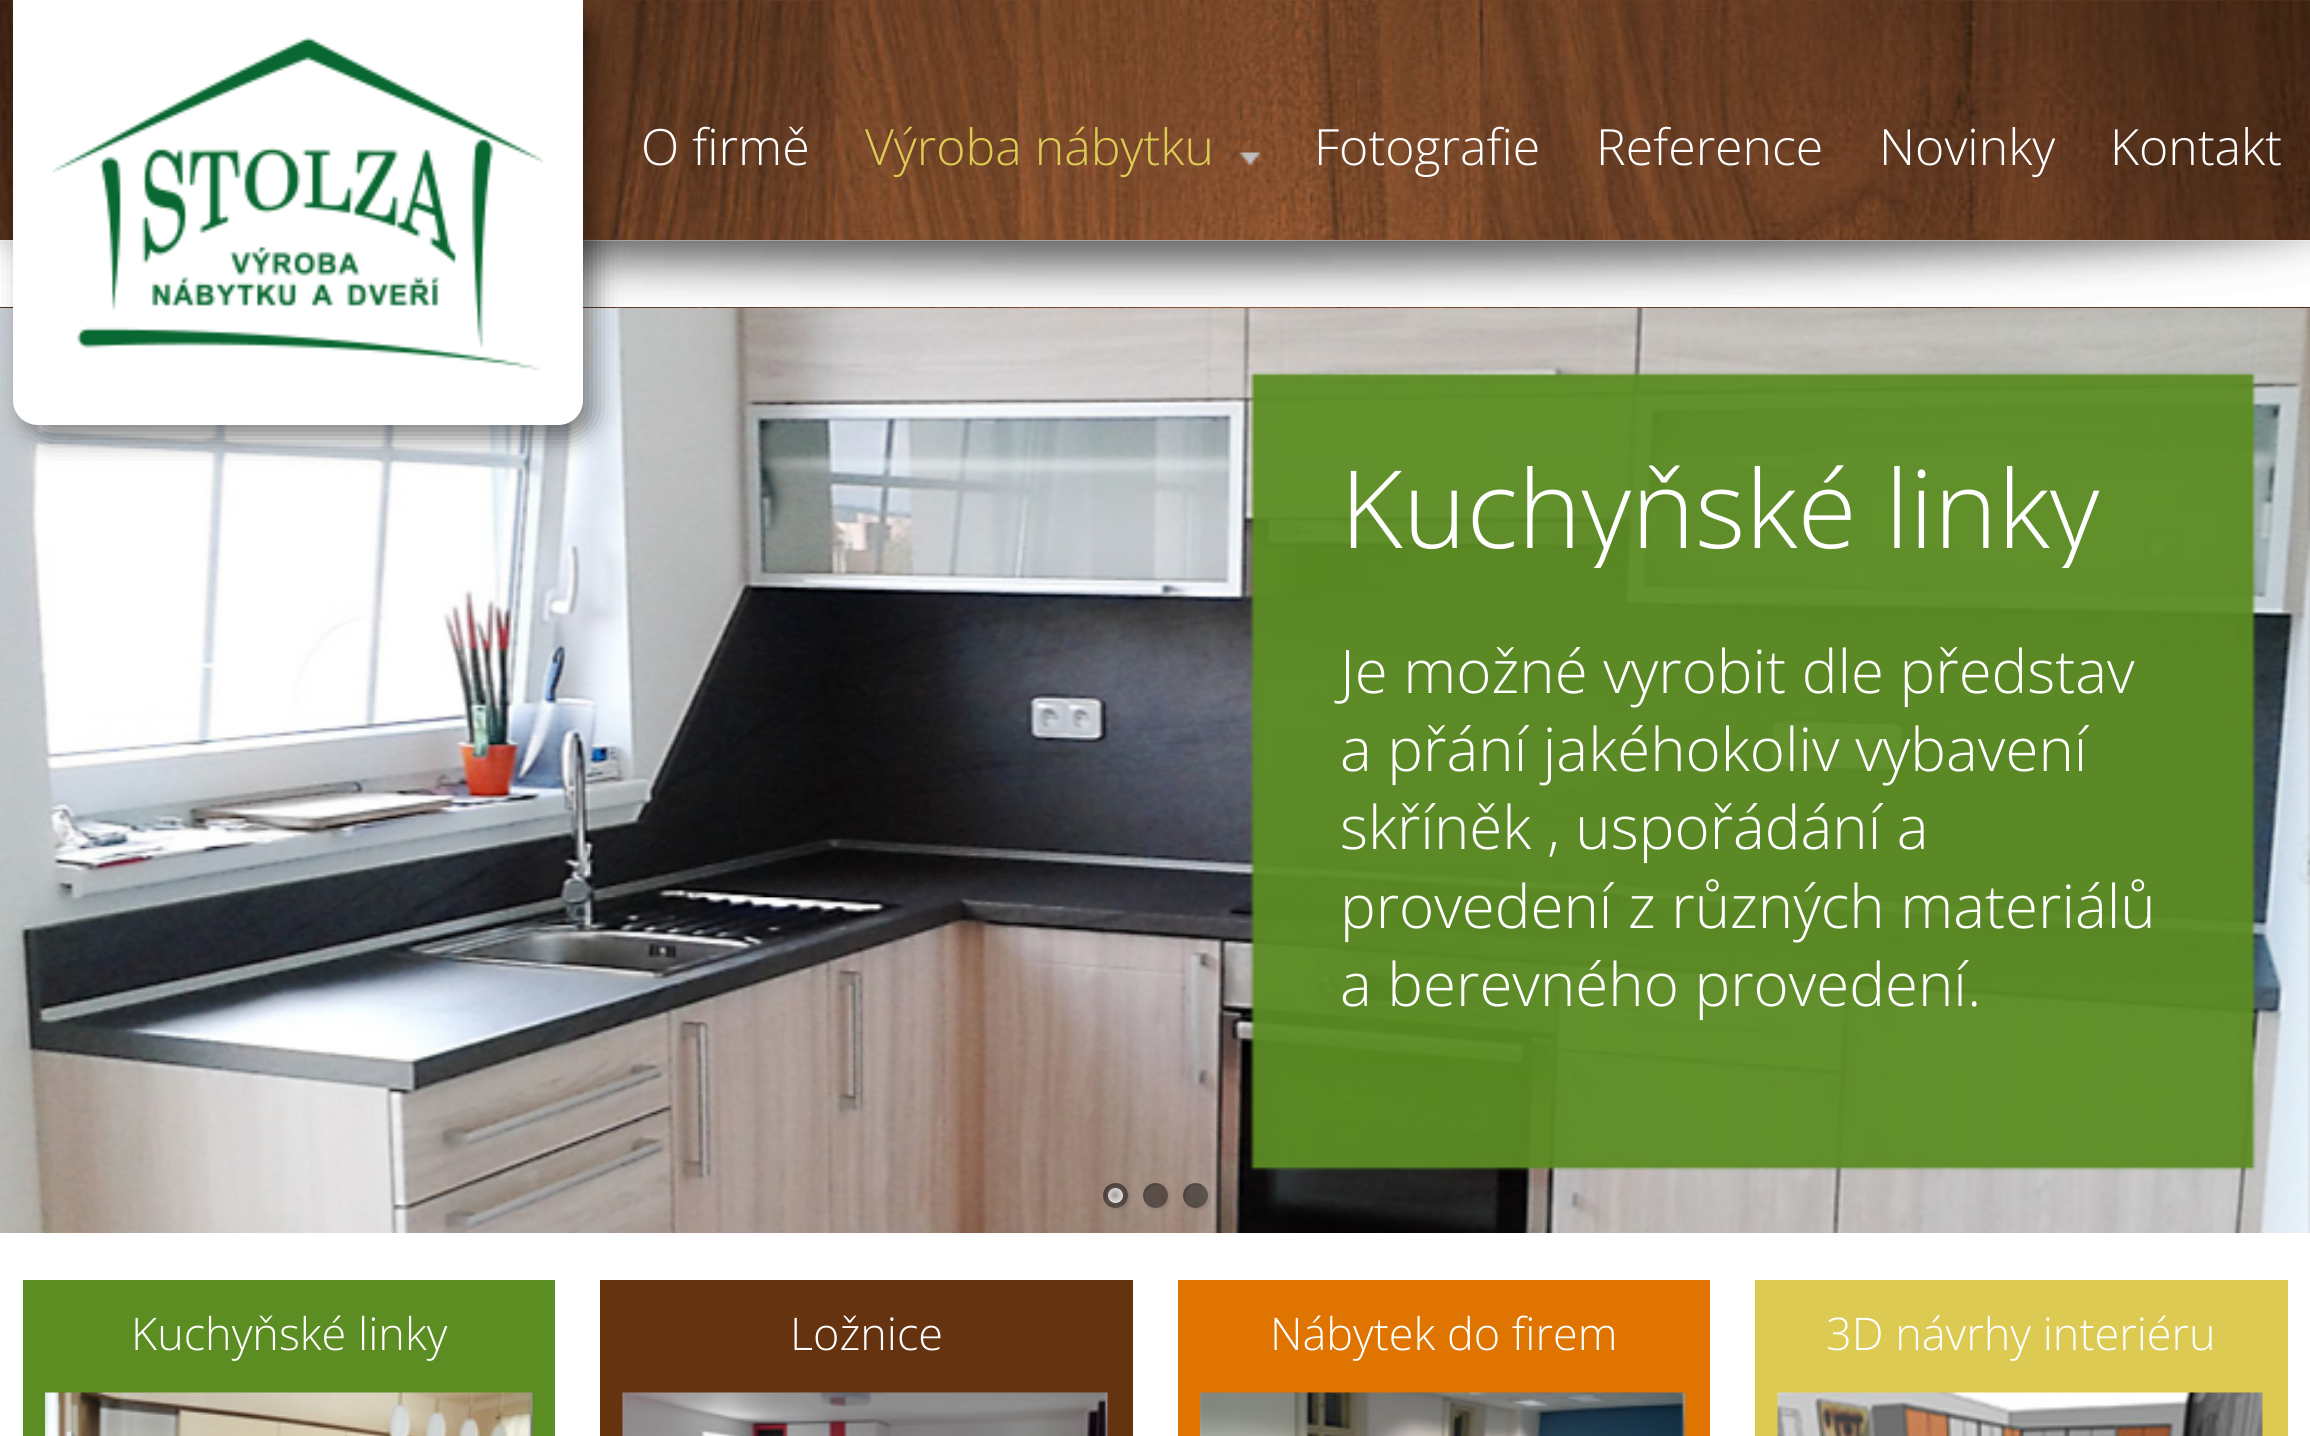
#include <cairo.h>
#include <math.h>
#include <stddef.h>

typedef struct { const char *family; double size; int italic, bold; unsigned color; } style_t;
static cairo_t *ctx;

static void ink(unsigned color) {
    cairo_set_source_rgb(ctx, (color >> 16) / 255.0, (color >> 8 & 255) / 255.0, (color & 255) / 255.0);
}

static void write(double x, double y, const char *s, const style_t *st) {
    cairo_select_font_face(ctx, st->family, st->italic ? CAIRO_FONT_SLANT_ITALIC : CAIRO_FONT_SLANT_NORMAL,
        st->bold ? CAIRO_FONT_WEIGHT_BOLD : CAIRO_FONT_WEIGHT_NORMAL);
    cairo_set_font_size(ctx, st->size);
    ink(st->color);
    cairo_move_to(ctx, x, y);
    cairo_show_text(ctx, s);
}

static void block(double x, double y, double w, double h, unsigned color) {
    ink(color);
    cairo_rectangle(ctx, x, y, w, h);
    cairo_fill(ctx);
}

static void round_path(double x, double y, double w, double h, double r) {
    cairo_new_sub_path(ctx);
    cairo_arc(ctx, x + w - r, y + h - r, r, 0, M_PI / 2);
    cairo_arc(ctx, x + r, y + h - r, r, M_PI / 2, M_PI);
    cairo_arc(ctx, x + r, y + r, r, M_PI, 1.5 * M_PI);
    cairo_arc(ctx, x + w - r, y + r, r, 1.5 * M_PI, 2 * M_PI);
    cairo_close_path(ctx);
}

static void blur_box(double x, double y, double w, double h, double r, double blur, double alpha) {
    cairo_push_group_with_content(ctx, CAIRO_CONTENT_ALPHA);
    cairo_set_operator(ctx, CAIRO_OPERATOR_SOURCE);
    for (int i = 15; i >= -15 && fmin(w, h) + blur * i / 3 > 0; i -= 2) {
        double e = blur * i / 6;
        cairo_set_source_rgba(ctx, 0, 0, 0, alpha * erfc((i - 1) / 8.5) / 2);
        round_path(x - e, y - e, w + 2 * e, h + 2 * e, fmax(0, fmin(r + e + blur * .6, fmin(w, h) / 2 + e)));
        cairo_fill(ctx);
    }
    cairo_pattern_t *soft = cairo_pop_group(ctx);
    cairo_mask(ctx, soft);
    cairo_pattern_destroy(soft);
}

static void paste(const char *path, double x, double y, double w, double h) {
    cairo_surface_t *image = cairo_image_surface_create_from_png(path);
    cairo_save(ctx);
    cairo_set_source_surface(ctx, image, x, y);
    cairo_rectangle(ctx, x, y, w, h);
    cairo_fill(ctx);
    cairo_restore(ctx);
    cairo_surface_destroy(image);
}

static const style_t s1 = {"Open Sans Light", 50, 0, 0, 0xffffff};
static const style_t s2 = {"Open Sans Light", 50, 0, 0, 0xdcca53};
static const style_t s3 = {"Open Sans Light", 45, 0, 0, 0xffffff};
static const style_t s4 = {"Open Sans Light", 108, 0, 0, 0xffffff};
static const style_t s5 = {"Open Sans Light", 60, 0, 0, 0xffffff};

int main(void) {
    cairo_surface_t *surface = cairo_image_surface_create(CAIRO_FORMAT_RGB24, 2310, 1436);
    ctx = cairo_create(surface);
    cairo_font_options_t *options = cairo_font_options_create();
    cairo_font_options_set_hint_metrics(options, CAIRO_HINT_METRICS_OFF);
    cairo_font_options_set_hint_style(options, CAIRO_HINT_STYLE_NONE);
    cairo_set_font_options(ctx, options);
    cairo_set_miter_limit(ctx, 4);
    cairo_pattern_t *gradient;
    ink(0xffffff);
    cairo_paint(ctx);
    paste("pic9.png", 0, 307, 2310, 926);
    paste("pic10.png", 0, 308, 2310, 925);
    paste("pic1.png", 0, 240, 2310, 69);
    paste("pic2.png", 0, 0, 2310, 240);
    ink(0x000000);
    blur_box(25, 13, 570, 425, 25, 12.5, 0.49);
    ink(0xffffff);
    cairo_new_path(ctx);
    cairo_move_to(ctx, 13, 0);
    cairo_line_to(ctx, 583, 0);
    cairo_line_to(ctx, 583, 400);
    cairo_curve_to(ctx, 583, 414, 572, 425, 558, 425);
    cairo_line_to(ctx, 38, 425);
    cairo_curve_to(ctx, 24, 425, 13, 414, 13, 400);
    cairo_close_path(ctx);
    cairo_fill(ctx);
    paste("pic3.png", 52, 37, 493, 333);
    write(641, 165, "O firmě", &s1);
    write(865, 165, "Výroba nábytku", &s2);
    paste("pic4.png", 1239, 152, 21, 13);
    write(1314, 165, "Fotografie", &s1);
    write(1596, 165, "Reference", &s1);
    write(1879, 165, "Novinky", &s1);
    write(2110, 165, "Kontakt", &s1);
    block(23, 1280, 532, 156, 0x5c8d23);
    write(131, 1350, "Kuchyňské linky", &s3);
    paste("pic5.png", 45, 1392, 488, 44);
    block(600, 1280, 533, 156, 0x663311);
    write(790, 1350, "Ložnice", &s3);
    paste("pic6.png", 622, 1392, 486, 44);
    block(1178, 1280, 532, 156, 0xdf7500);
    write(1270, 1350, "Nábytek do firem", &s3);
    paste("pic7.png", 1200, 1392, 485, 44);
    block(1755, 1280, 533, 156, 0xdcca53);
    write(1826, 1350, "3D návrhy interiéru", &s3);
    paste("pic8.png", 1777, 1392, 486, 44);
    cairo_save(ctx);
    cairo_rectangle(ctx, 0, 333, 2310, 235);
    cairo_clip(ctx);
    write(1340, 548, "Kuchyňské linky", &s4);
    cairo_restore(ctx);
    write(1340, 693, "Je možné vyrobit dle představ", &s5);
    write(1340, 771, "a přání jakéhokoliv vybavení", &s5);
    write(1340, 849, "skříněk , uspořádání a", &s5);
    write(1340, 928, "provedení z různých materiálů", &s5);
    write(1340, 1006, "a berevného provedení.", &s5);
    cairo_save(ctx);
    cairo_set_fill_rule(ctx, CAIRO_FILL_RULE_EVEN_ODD);
    cairo_new_path(ctx);
    cairo_move_to(ctx, 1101, 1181);
    cairo_line_to(ctx, 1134, 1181);
    cairo_line_to(ctx, 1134, 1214);
    cairo_line_to(ctx, 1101, 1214);
    cairo_close_path(ctx);
    cairo_move_to(ctx, 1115.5, 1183);
    cairo_curve_to(ctx, 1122.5, 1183, 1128, 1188.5, 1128, 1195.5);
    cairo_curve_to(ctx, 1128, 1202.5, 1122.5, 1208, 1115.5, 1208);
    cairo_curve_to(ctx, 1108.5, 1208, 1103, 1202.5, 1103, 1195.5);
    cairo_curve_to(ctx, 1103, 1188.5, 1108.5, 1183, 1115.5, 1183);
    cairo_close_path(ctx);
    cairo_clip(ctx);
    ink(0x000000);
    blur_box(1105, 1185, 25, 25, 12.5, 1, 0.1);
    cairo_restore(ctx);
    gradient = cairo_pattern_create_radial(1115, 1195, 0, 1115, 1195, 18);
    cairo_pattern_add_color_stop_rgba(gradient, 0, 0, 0, 0, 0.45);
    cairo_pattern_add_color_stop_rgba(gradient, 0.8, 0, 0, 0, 0.45);
    cairo_pattern_add_color_stop_rgba(gradient, 1, 0, 0, 0, 0.82);
    cairo_set_source(ctx, gradient);
    cairo_pattern_destroy(gradient);
    cairo_arc(ctx, 1115.5, 1195.5, 12.5, 0, 2 * M_PI);
    cairo_fill(ctx);
    cairo_set_source_rgba(ctx, 0, 0, 0, 0.1);
    cairo_new_path(ctx);
    cairo_move_to(ctx, 1118, 1185);
    cairo_curve_to(ctx, 1120.5, 1185, 1122.5, 1185.5, 1124.5, 1186.5);
    cairo_curve_to(ctx, 1119.5, 1182, 1111.5, 1182, 1106.5, 1186.5);
    cairo_curve_to(ctx, 1101.5, 1192, 1102, 1201, 1108, 1205.5);
    cairo_curve_to(ctx, 1102.5, 1198, 1105.5, 1185, 1118, 1185);
    cairo_close_path(ctx);
    cairo_fill(ctx);
    gradient = cairo_pattern_create_radial(1115, 1195, 0, 1115, 1195, 11);
    cairo_pattern_add_color_stop_rgba(gradient, 0, 1, 1, 1, 0.45);
    cairo_pattern_add_color_stop_rgba(gradient, 0.03, 1, 1, 1, 0.45);
    cairo_pattern_add_color_stop_rgba(gradient, 1, 1, 1, 1, 1);
    cairo_set_source(ctx, gradient);
    cairo_pattern_destroy(gradient);
    cairo_arc(ctx, 1115.5, 1195.5, 7.5, 0, 2 * M_PI);
    cairo_fill(ctx);
    cairo_save(ctx);
    cairo_set_fill_rule(ctx, CAIRO_FILL_RULE_EVEN_ODD);
    cairo_new_path(ctx);
    cairo_move_to(ctx, 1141, 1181);
    cairo_line_to(ctx, 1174, 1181);
    cairo_line_to(ctx, 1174, 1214);
    cairo_line_to(ctx, 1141, 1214);
    cairo_close_path(ctx);
    cairo_move_to(ctx, 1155.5, 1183);
    cairo_curve_to(ctx, 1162.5, 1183, 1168, 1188.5, 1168, 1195.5);
    cairo_curve_to(ctx, 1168, 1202.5, 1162.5, 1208, 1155.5, 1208);
    cairo_curve_to(ctx, 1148.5, 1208, 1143, 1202.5, 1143, 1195.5);
    cairo_curve_to(ctx, 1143, 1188.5, 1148.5, 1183, 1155.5, 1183);
    cairo_close_path(ctx);
    cairo_clip(ctx);
    ink(0x000000);
    blur_box(1145, 1185, 25, 25, 12.5, 1, 0.1);
    cairo_restore(ctx);
    gradient = cairo_pattern_create_radial(1155, 1195, 0, 1155, 1195, 18);
    cairo_pattern_add_color_stop_rgba(gradient, 0, 0, 0, 0, 0.45);
    cairo_pattern_add_color_stop_rgba(gradient, 0.8, 0, 0, 0, 0.45);
    cairo_pattern_add_color_stop_rgba(gradient, 1, 0, 0, 0, 0.82);
    cairo_set_source(ctx, gradient);
    cairo_pattern_destroy(gradient);
    cairo_arc(ctx, 1155.5, 1195.5, 12.5, 0, 2 * M_PI);
    cairo_fill(ctx);
    cairo_set_source_rgba(ctx, 0, 0, 0, 0.1);
    cairo_new_path(ctx);
    cairo_move_to(ctx, 1158, 1185);
    cairo_curve_to(ctx, 1160.5, 1185, 1162.5, 1185.5, 1164.5, 1186.5);
    cairo_curve_to(ctx, 1159.5, 1182, 1151.5, 1182, 1146.5, 1186.5);
    cairo_curve_to(ctx, 1141.5, 1192, 1142, 1201, 1148, 1205.5);
    cairo_curve_to(ctx, 1142.5, 1198, 1145.5, 1185, 1158, 1185);
    cairo_close_path(ctx);
    cairo_fill(ctx);
    cairo_save(ctx);
    cairo_set_fill_rule(ctx, CAIRO_FILL_RULE_EVEN_ODD);
    cairo_new_path(ctx);
    cairo_move_to(ctx, 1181, 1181);
    cairo_line_to(ctx, 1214, 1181);
    cairo_line_to(ctx, 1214, 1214);
    cairo_line_to(ctx, 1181, 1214);
    cairo_close_path(ctx);
    cairo_move_to(ctx, 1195.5, 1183);
    cairo_curve_to(ctx, 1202.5, 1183, 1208, 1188.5, 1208, 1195.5);
    cairo_curve_to(ctx, 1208, 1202.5, 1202.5, 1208, 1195.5, 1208);
    cairo_curve_to(ctx, 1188.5, 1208, 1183, 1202.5, 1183, 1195.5);
    cairo_curve_to(ctx, 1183, 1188.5, 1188.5, 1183, 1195.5, 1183);
    cairo_close_path(ctx);
    cairo_clip(ctx);
    ink(0x000000);
    blur_box(1185, 1185, 25, 25, 12.5, 1, 0.1);
    cairo_restore(ctx);
    gradient = cairo_pattern_create_radial(1195, 1195, 0, 1195, 1195, 18);
    cairo_pattern_add_color_stop_rgba(gradient, 0, 0, 0, 0, 0.45);
    cairo_pattern_add_color_stop_rgba(gradient, 0.8, 0, 0, 0, 0.45);
    cairo_pattern_add_color_stop_rgba(gradient, 1, 0, 0, 0, 0.82);
    cairo_set_source(ctx, gradient);
    cairo_pattern_destroy(gradient);
    cairo_arc(ctx, 1195.5, 1195.5, 12.5, 0, 2 * M_PI);
    cairo_fill(ctx);
    cairo_set_source_rgba(ctx, 0, 0, 0, 0.1);
    cairo_new_path(ctx);
    cairo_move_to(ctx, 1198, 1185);
    cairo_curve_to(ctx, 1200.5, 1185, 1202.5, 1185.5, 1204.5, 1186.5);
    cairo_curve_to(ctx, 1199.5, 1182, 1191.5, 1182, 1186.5, 1186.5);
    cairo_curve_to(ctx, 1181.5, 1192, 1182, 1201, 1188, 1205.5);
    cairo_curve_to(ctx, 1182.5, 1198, 1185.5, 1185, 1198, 1185);
    cairo_close_path(ctx);
    cairo_fill(ctx);
    cairo_surface_write_to_png(surface, "screenshot.png");
    cairo_font_options_destroy(options);
    cairo_destroy(ctx);
    cairo_surface_destroy(surface);
    return 0;
}
